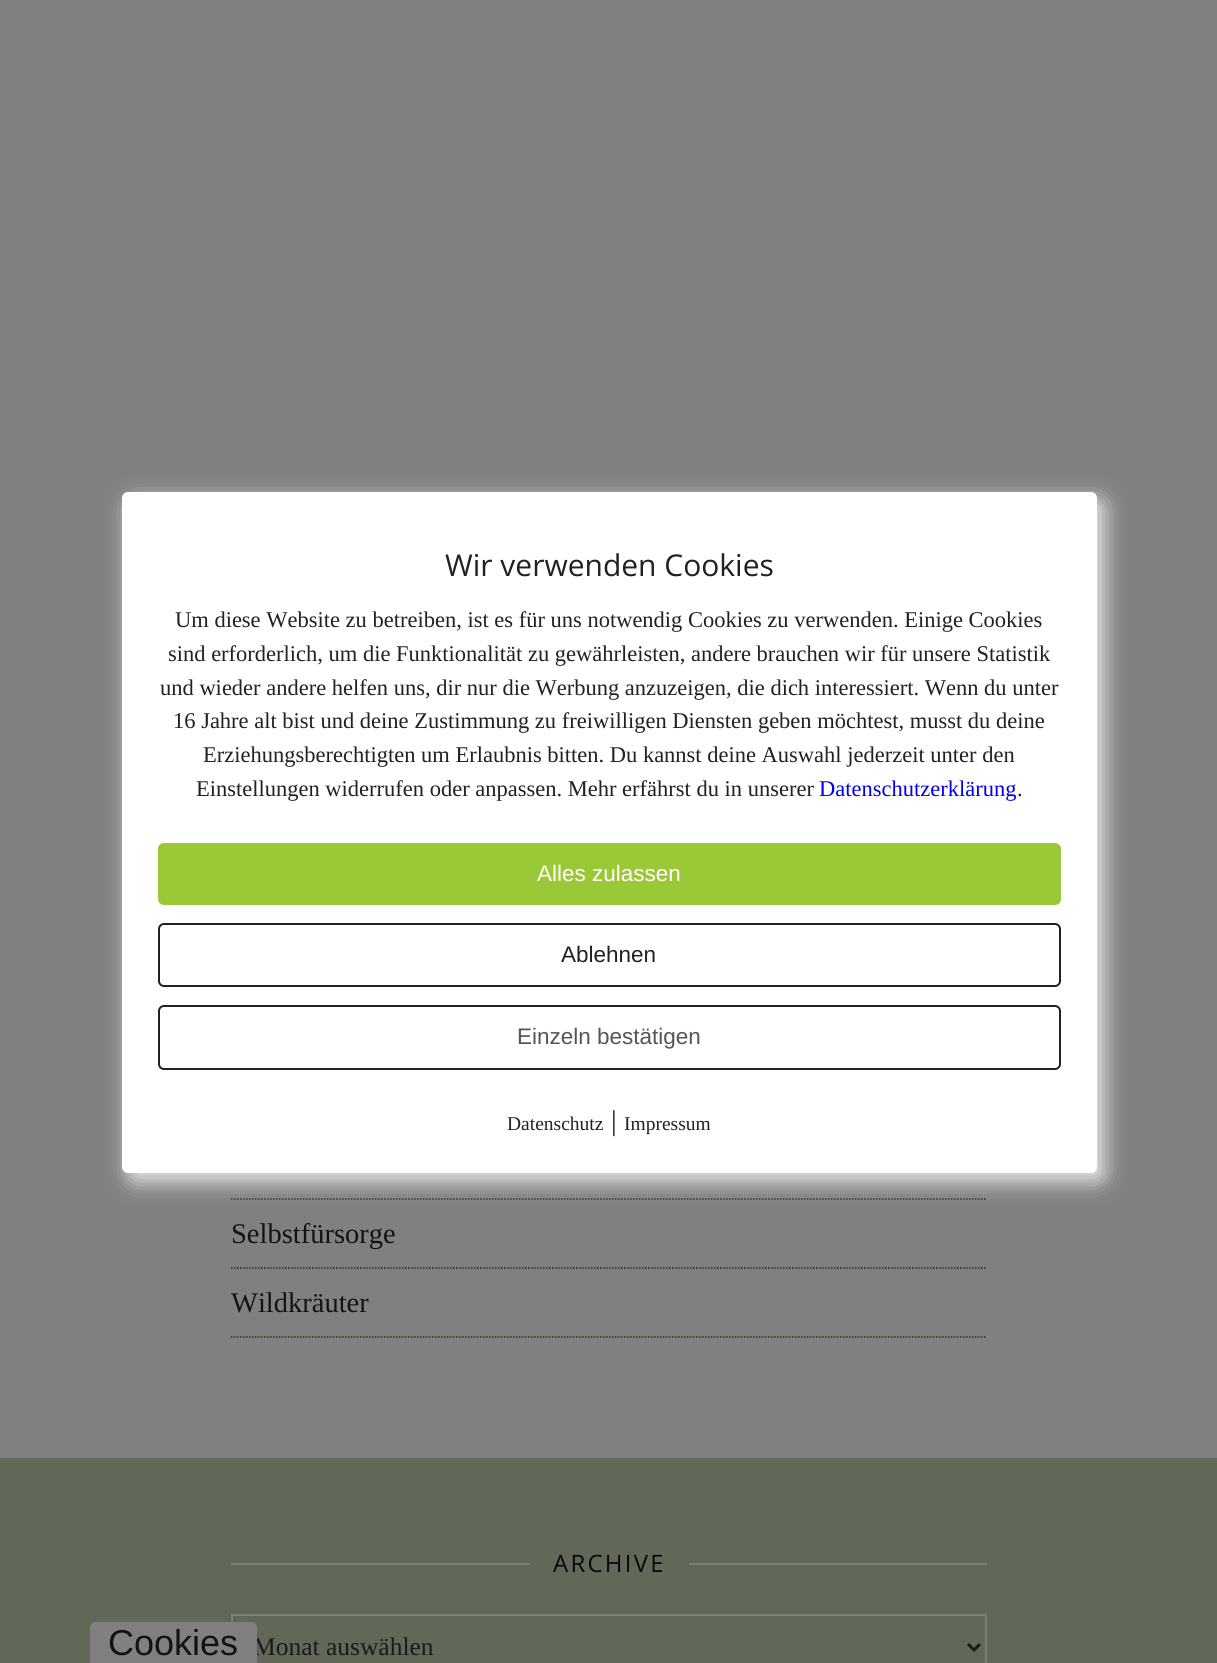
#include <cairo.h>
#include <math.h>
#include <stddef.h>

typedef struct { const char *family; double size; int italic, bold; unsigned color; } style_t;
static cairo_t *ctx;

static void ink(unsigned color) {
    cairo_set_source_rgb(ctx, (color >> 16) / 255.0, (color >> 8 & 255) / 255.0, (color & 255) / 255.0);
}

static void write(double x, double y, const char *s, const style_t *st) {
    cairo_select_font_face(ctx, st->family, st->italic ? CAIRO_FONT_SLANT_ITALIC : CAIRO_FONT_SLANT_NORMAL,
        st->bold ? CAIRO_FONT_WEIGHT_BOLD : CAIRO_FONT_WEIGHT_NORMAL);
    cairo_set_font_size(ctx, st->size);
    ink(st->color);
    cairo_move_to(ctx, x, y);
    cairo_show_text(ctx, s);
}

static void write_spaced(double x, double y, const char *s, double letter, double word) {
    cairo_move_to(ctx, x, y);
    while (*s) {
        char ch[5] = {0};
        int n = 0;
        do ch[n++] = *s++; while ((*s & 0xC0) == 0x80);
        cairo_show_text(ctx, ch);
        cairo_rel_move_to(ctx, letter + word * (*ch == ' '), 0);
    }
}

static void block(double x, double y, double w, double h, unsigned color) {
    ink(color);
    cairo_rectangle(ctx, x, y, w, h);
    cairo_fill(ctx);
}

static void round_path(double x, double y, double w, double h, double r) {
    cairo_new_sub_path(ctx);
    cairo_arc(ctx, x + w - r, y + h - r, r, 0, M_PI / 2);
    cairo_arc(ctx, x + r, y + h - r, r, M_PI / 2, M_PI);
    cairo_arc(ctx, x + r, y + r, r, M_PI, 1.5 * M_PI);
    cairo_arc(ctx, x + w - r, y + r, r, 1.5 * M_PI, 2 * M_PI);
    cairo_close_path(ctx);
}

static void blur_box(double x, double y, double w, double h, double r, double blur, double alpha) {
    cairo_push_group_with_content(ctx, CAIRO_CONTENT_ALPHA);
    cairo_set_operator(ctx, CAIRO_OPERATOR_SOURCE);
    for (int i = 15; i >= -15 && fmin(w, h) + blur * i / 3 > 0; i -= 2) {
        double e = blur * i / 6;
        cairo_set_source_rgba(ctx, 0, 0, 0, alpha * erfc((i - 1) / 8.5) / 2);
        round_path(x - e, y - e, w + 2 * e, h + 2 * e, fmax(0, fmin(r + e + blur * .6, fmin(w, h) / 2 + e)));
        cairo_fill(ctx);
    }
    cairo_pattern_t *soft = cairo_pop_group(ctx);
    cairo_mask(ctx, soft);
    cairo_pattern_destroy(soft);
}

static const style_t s1 = {"Open Sans", 30, 0, 0, 0x212121};
static const style_t s2 = {"Liberation Serif", 22.5, 0, 0, 0x212121};
static const style_t s3 = {"Liberation Serif", 22.5, 0, 0, 0x0000ee};
static const style_t s4 = {"Liberation Sans", 22.5, 0, 0, 0xffffff};
static const style_t s5 = {"Liberation Sans", 22.5, 0, 0, 0x212121};
static const style_t s6 = {"Liberation Sans", 22.5, 0, 0, 0x555555};
static const style_t s7 = {"Liberation Serif", 19.5, 0, 0, 0x212121};
static const style_t s8 = {"Liberation Serif", 28.5, 0, 0, 0x212121};
static const style_t s9 = {"Liberation Serif", 25.5, 0, 0, 0x1a1a1a};
static const style_t s10 = {"Liberation Sans", 36, 0, 0, 0x131313};
static const style_t s11 = {"Liberation Serif", 28.5, 0, 0, 0x131313};

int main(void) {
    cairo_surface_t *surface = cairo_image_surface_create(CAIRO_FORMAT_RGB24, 1217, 1663);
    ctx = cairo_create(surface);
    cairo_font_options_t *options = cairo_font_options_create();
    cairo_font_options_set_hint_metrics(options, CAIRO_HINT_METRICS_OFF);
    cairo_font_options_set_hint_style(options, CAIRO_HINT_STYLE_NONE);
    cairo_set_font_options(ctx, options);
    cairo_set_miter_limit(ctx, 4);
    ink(0x808080);
    cairo_paint(ctx);
    cairo_new_path(ctx);
    cairo_move_to(ctx, 231, 1199);
    cairo_line_to(ctx, 987, 1199);
    ink(0x203010);
    cairo_set_line_width(ctx, 1.5);
    cairo_set_dash(ctx, (double[]){1.5, 1.5}, 2, 0);
    cairo_stroke(ctx);
    ink(0xeeeeee);
    blur_box(129, 500, 975, 681, 6, 11, 1);
    ink(0xffffff);
    round_path(122, 492, 975, 681, 6);
    cairo_fill(ctx);
    write(445, 576, "Wir verwenden Cookies", &s1);
    write(175, 627, "Um diese Website zu betreiben, ist es für uns notwendig Cookies zu verwenden. Einige Cookies", &s2);
    write(168, 661, "sind erforderlich, um die Funktionalität zu gewährleisten, andere brauchen wir für unsere Statistik", &s2);
    write(160, 695, "und wieder andere helfen uns, dir nur die Werbung anzuzeigen, die dich interessiert. Wenn du unter", &s2);
    write(173, 728, "16 Jahre alt bist und deine Zustimmung zu freiwilligen Diensten geben möchtest, musst du deine", &s2);
    write(203, 762, "Erziehungsberechtigten um Erlaubnis bitten. Du kannst deine Auswahl jederzeit unter den", &s2);
    write(196, 796, "Einstellungen widerrufen oder anpassen. Mehr erfährst du in unserer", &s2);
    write(819, 796, "Datenschutzerklärung", &s3);
    write(1017, 796, ".", &s2);
    ink(0x9ac836);
    round_path(158, 843, 903, 62, 6);
    cairo_fill(ctx);
    write(537, 881, "Alles zulassen", &s4);
    round_path(159, 924, 901, 62, 5);
    ink(0x212121);
    cairo_set_line_width(ctx, 2);
    cairo_set_dash(ctx, NULL, 0, 0);
    cairo_stroke(ctx);
    write(561, 962, "Ablehnen", &s5);
    round_path(159, 1006, 901, 63, 5);
    cairo_stroke(ctx);
    write(517, 1044, "Einzeln bestätigen", &s6);
    write(507, 1130, "Datenschutz", &s7);
    write(611, 1130, "|", &s8);
    write(624, 1130, "Impressum", &s7);
    block(0, 1458, 1217, 205, 0x626858);
    cairo_rectangle(ctx, 232, 1615, 754, 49);
    ink(0x7d7e74);
    cairo_stroke(ctx);
    write(253, 1655, "Monat auswählen", &s9);
    ink(0x808080);
    cairo_new_path(ctx);
    cairo_move_to(ctx, 96, 1622);
    cairo_line_to(ctx, 251, 1622);
    cairo_curve_to(ctx, 254.5, 1622, 257, 1624.5, 257, 1628);
    cairo_line_to(ctx, 257, 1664);
    cairo_line_to(ctx, 90, 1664);
    cairo_line_to(ctx, 90, 1628);
    cairo_curve_to(ctx, 90, 1624.5, 92.5, 1622, 96, 1622);
    cairo_close_path(ctx);
    cairo_fill(ctx);
    write(108, 1655, "Cookies", &s10);
    cairo_new_path(ctx);
    cairo_move_to(ctx, 231, 1268);
    cairo_line_to(ctx, 987, 1268);
    ink(0x203010);
    cairo_set_line_width(ctx, 1.5);
    cairo_set_dash(ctx, (double[]){1.5, 1.5}, 2, 0);
    cairo_stroke(ctx);
    write(231, 1243, "Selbstfürsorge", &s11);
    cairo_new_path(ctx);
    cairo_move_to(ctx, 231, 1337);
    cairo_line_to(ctx, 987, 1337);
    ink(0x203010);
    cairo_stroke(ctx);
    write(231, 1312, "Wildkräuter", &s11);
    block(231, 1563, 299, 2, 0x7d7e74);
    cairo_select_font_face(ctx, "Open Sans", CAIRO_FONT_SLANT_NORMAL, CAIRO_FONT_WEIGHT_NORMAL);
    cairo_set_font_size(ctx, 24);
    ink(0x090909);
    write_spaced(553, 1572, "ARCHIVE", 2.25, 0);
    block(689, 1563, 298, 2, 0x7d7e74);
    cairo_new_path(ctx);
    cairo_move_to(ctx, 968, 1644);
    cairo_line_to(ctx, 974, 1650);
    cairo_line_to(ctx, 980, 1644);
    ink(0x1a1a1a);
    cairo_set_line_width(ctx, 3);
    cairo_set_dash(ctx, NULL, 0, 0);
    cairo_stroke(ctx);
    cairo_surface_write_to_png(surface, "screenshot.png");
    cairo_font_options_destroy(options);
    cairo_destroy(ctx);
    cairo_surface_destroy(surface);
    return 0;
}
